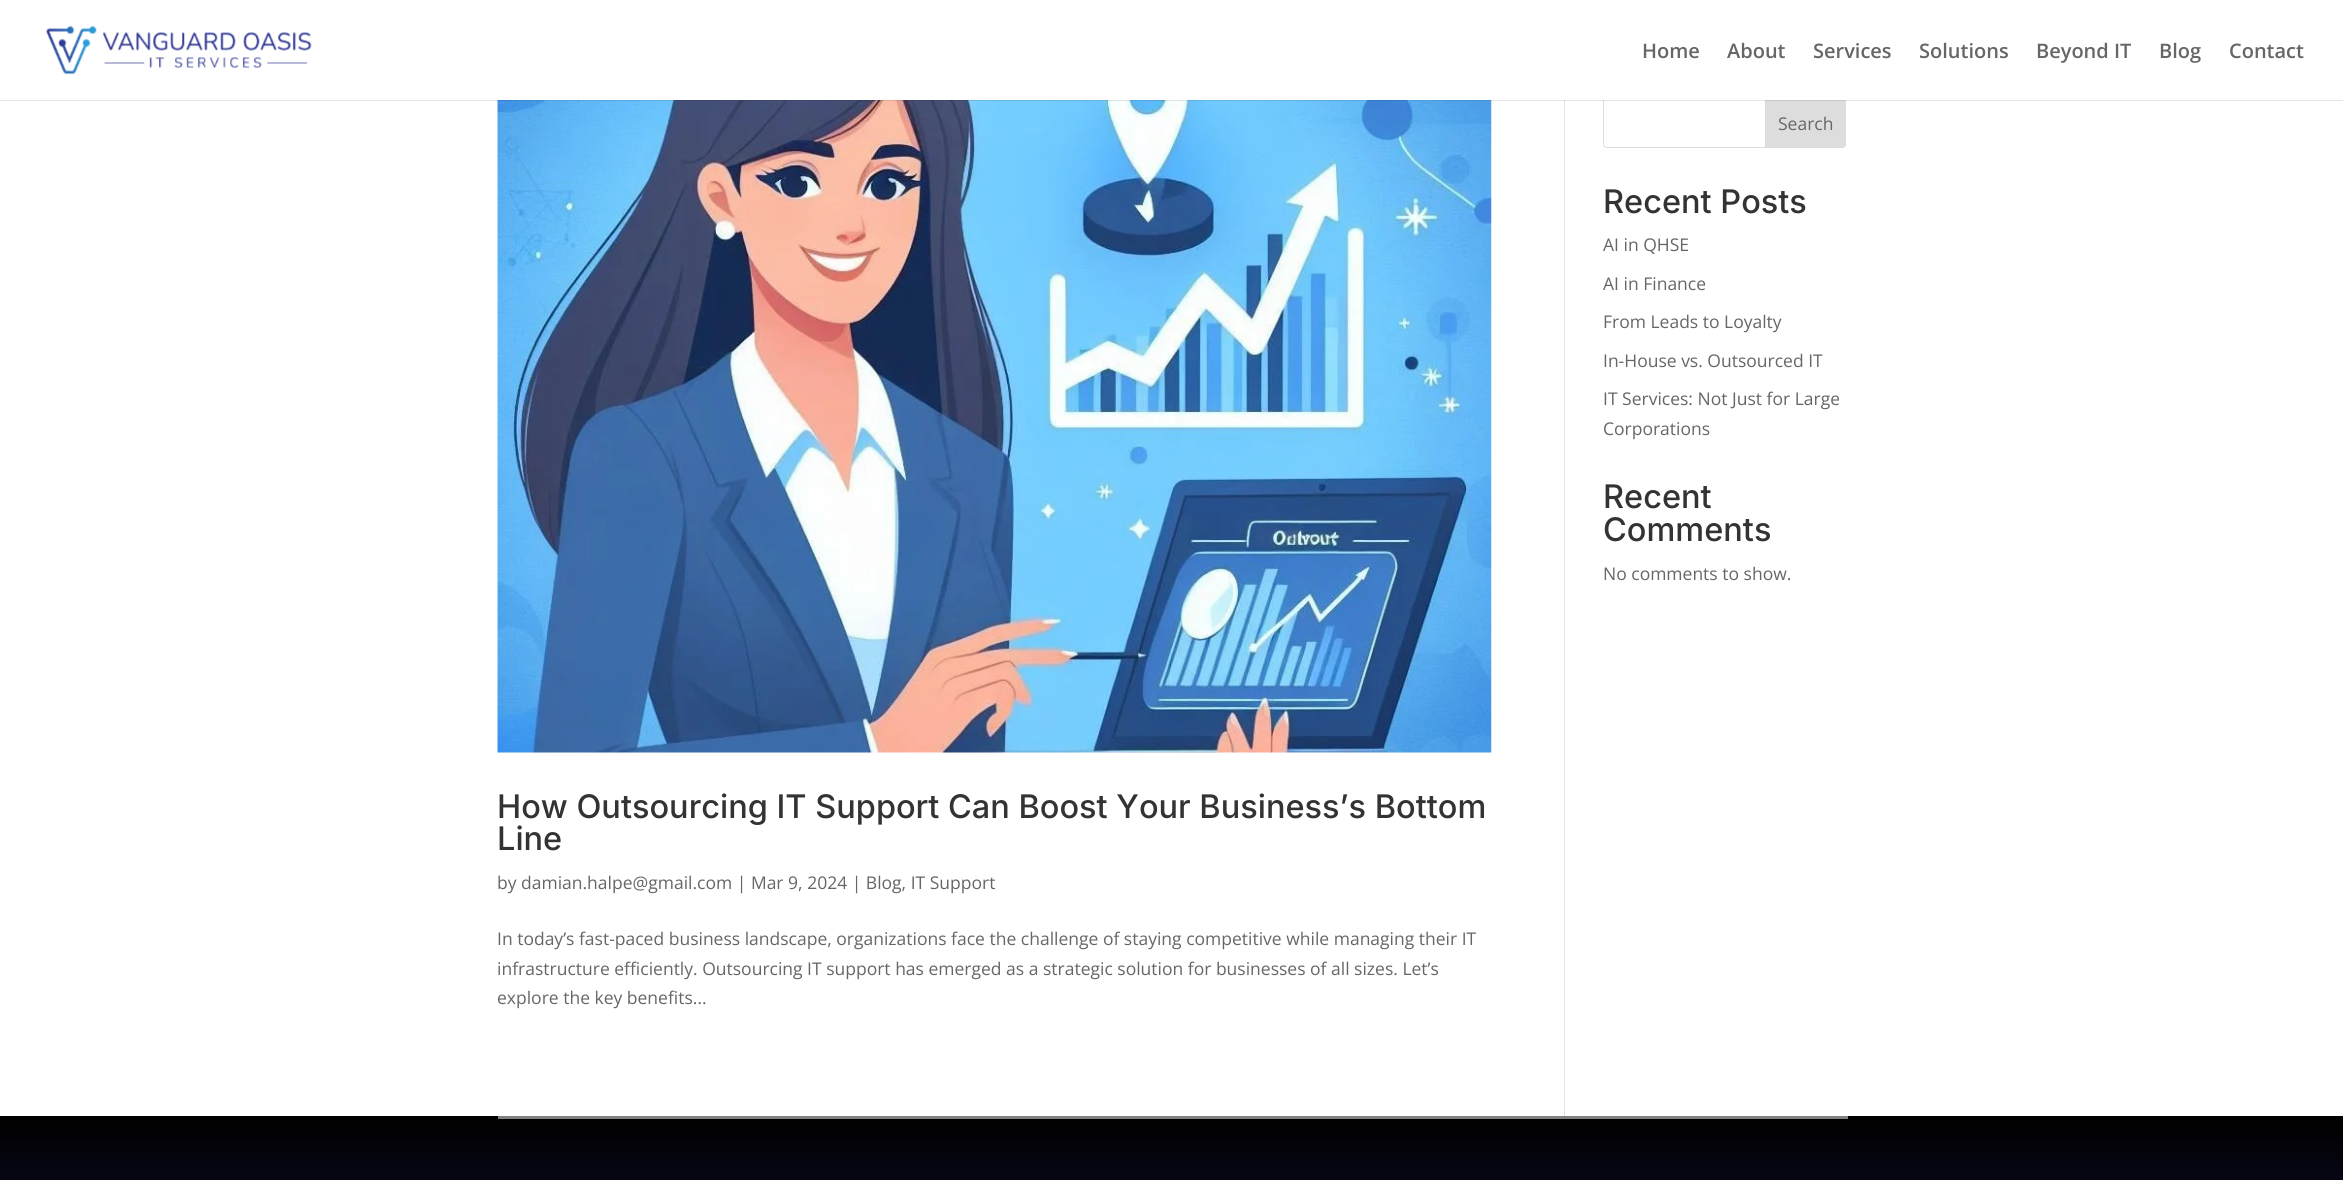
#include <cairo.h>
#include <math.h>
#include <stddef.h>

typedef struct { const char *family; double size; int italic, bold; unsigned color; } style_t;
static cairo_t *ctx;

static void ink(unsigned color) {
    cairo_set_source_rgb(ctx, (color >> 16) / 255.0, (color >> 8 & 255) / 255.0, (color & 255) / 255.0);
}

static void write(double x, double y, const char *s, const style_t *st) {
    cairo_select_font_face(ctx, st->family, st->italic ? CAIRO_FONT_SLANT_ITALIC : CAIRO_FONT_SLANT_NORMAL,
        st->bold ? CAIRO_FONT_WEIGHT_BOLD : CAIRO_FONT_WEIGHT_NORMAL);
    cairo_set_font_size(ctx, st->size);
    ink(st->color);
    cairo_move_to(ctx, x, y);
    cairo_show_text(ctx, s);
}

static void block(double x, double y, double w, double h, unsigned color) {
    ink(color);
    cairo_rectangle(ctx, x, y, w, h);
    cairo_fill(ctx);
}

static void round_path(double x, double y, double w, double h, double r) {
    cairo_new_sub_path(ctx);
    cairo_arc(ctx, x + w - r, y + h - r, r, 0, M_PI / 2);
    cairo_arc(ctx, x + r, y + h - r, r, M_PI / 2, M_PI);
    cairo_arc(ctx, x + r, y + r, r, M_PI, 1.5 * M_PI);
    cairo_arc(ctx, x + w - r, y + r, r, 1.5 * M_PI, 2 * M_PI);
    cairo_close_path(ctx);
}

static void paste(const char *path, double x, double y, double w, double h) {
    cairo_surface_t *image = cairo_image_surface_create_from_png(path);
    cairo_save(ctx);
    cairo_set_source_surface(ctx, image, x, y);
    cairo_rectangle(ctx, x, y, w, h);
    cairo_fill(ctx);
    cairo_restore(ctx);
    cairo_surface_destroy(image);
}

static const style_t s1 = {"Open Sans SemiBold", 20, 0, 0, 0x666666};
static const style_t s2 = {"Open Sans", 17.5, 0, 0, 0x666666};
static const style_t s3 = {"Inter Medium", 32.5, 0, 0, 0x333333};

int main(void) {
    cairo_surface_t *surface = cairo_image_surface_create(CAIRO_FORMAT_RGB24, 2343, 1180);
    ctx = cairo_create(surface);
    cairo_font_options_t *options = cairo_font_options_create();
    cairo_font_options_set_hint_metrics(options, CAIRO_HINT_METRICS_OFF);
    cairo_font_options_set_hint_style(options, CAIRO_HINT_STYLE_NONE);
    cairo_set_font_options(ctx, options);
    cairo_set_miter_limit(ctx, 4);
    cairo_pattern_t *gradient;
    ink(0xffffff);
    cairo_paint(ctx);
    block(1564, 100, 1, 1016, 0xe2e2e2);
    round_path(1603.5, 98.5, 242, 49, 3.5);
    ink(0xdddddd);
    cairo_set_line_width(ctx, 1);
    cairo_stroke(ctx);
    cairo_new_path(ctx);
    cairo_move_to(ctx, 1765.5, 98.5);
    cairo_line_to(ctx, 1842, 98.5);
    cairo_curve_to(ctx, 1844, 98.5, 1845.5, 100, 1845.5, 102);
    cairo_line_to(ctx, 1845.5, 144);
    cairo_curve_to(ctx, 1845.5, 146, 1844, 147.5, 1842, 147.5);
    cairo_line_to(ctx, 1765.5, 147.5);
    cairo_close_path(ctx);
    cairo_fill_preserve(ctx);
    cairo_stroke(ctx);
    paste("pic2.png", 497, 100, 995, 653);
    cairo_set_source_rgba(ctx, 0, 0, 0, 0.1);
    cairo_new_path(ctx);
    cairo_move_to(ctx, 0, 100);
    cairo_line_to(ctx, 0, 101);
    cairo_line_to(ctx, 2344, 101);
    cairo_line_to(ctx, 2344, 1);
    cairo_line_to(ctx, 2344, 100);
    cairo_close_path(ctx);
    cairo_fill(ctx);
    block(1603, 98, 243, 2, 0xffffff);
    paste("pic1.png", 46, 25, 266, 50);
    write(1642, 58, "Home", &s1);
    write(1727, 58, "About", &s1);
    write(1813, 58, "Services", &s1);
    write(1919, 58, "Solutions", &s1);
    write(2036, 58, "Beyond IT", &s1);
    write(2159, 58, "Blog", &s1);
    write(2229, 58, "Contact", &s1);
    write(1778, 130, "Search", &s2);
    write(1603, 213, "Recent Posts", &s3);
    write(1603, 251, "AI in QHSE", &s2);
    write(1603, 290, "AI in Finance", &s2);
    write(1603, 328, "From Leads to Loyalty", &s2);
    write(1603, 367, "In-House vs. Outsourced IT", &s2);
    write(1603, 405, "IT Services: Not Just for Large", &s2);
    write(1603, 435, "Corporations", &s2);
    write(1603, 508, "Recent", &s3);
    write(1603, 541, "Comments", &s3);
    write(1603, 580, "No comments to show.", &s2);
    write(497, 818, "How Outsourcing IT Support Can Boost Your Business’s Bottom", &s3);
    write(497, 850, "Line", &s3);
    write(497, 889, "by damian.halpe@gmail.com | Mar 9, 2024 | Blog, IT Support", &s2);
    write(497, 945, "In today’s fast-paced business landscape, organizations face the challenge of staying competitive while managing their IT", &s2);
    write(497, 975, "infrastructure efficiently. Outsourcing IT support has emerged as a strategic solution for businesses of all sizes. Let’s", &s2);
    write(497, 1004, "explore the key benefits...", &s2);
    gradient = cairo_pattern_create_linear(1172, 1116, 1172, 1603);
    cairo_pattern_add_color_stop_rgba(gradient, 0, 0, 0, 0, 1);
    cairo_pattern_add_color_stop_rgba(gradient, 1, 0.18, 0.192, 0.573, 1);
    cairo_set_source(ctx, gradient);
    cairo_pattern_destroy(gradient);
    cairo_rectangle(ctx, 0, 1116, 2343, 64);
    cairo_fill(ctx);
    block(498, 1116, 1350, 3, 0x808080);
    cairo_surface_write_to_png(surface, "screenshot.png");
    cairo_font_options_destroy(options);
    cairo_destroy(ctx);
    cairo_surface_destroy(surface);
    return 0;
}
